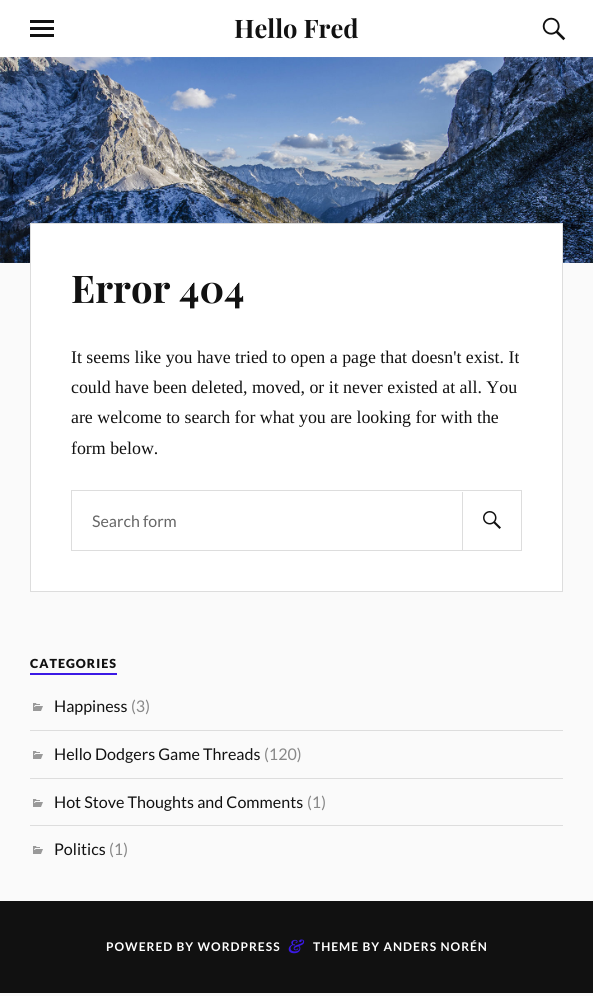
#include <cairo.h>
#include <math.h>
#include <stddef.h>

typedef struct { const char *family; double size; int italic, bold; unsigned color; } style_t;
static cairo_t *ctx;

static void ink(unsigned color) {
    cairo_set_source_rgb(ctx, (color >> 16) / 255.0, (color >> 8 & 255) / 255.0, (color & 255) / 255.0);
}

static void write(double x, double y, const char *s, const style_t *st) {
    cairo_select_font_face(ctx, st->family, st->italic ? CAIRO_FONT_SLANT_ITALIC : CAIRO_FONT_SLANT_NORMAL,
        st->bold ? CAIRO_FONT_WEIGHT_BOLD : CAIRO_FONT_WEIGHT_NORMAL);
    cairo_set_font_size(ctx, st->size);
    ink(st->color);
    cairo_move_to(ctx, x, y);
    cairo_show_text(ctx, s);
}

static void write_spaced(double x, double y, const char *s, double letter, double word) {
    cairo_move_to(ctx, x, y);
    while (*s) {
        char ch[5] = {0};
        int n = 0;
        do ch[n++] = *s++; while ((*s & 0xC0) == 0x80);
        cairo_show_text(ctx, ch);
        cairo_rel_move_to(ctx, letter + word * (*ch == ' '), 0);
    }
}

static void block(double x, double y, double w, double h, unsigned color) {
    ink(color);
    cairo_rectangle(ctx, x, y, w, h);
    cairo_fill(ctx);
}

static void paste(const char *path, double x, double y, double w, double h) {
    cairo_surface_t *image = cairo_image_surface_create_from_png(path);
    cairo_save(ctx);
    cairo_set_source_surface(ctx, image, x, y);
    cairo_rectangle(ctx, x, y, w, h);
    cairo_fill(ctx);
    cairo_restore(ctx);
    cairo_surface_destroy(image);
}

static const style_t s1 = {"Playfair Display", 25.5, 0, 1, 0x111111};
static const style_t s2 = {"Playfair Display", 38.25, 0, 1, 0x111111};
static const style_t s3 = {"Liberation Serif", 17.85, 0, 0, 0x111111};
static const style_t s4 = {"Lato", 16, 0, 0, 0x666666};
static const style_t s5 = {"Lato", 16.1, 0, 0, 0x111111};
static const style_t s6 = {"Lato", 16.1, 0, 0, 0x888888};

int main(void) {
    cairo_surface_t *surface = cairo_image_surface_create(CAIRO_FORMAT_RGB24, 593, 996);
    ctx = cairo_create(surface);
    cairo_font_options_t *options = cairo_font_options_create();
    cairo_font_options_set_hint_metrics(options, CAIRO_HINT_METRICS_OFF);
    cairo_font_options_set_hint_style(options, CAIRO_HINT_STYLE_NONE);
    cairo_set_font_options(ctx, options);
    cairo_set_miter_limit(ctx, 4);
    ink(0xfafafa);
    cairo_paint(ctx);
    block(0, 0, 593, 57, 0xffffff);
    block(30, 20, 24, 3, 0x111111);
    block(30, 27, 24, 3, 0x111111);
    block(30, 34, 24, 3, 0x111111);
    paste("pic1.png", 542, 17, 24, 24);
    write(234, 38, "Hello Fred", &s1);
    paste("pic2.png", 0, 57, 593, 206);
    ink(0xffffff);
    cairo_rectangle(ctx, 30.5, 223.5, 532, 368);
    cairo_fill_preserve(ctx);
    ink(0xdddddd);
    cairo_set_line_width(ctx, 1);
    cairo_stroke(ctx);
    write(71, 303, "Error 404", &s2);
    write(71, 363, "It seems like you have tried to open a page that doesn't exist. It", &s3);
    write(71, 393, "could have been deleted, moved, or it never existed at all. You", &s3);
    write(71, 423, "are welcome to search for what you are looking for with the", &s3);
    write(71, 454, "form below.", &s3);
    cairo_rectangle(ctx, 71.5, 490.5, 450, 60);
    ink(0xdddddd);
    cairo_stroke(ctx);
    write(92, 527, "Search form", &s4);
    block(462, 492, 1, 58, 0xdddddd);
    paste("pic3.png", 483, 511, 18, 18);
    block(30, 673, 87, 2, 0x3b19e5);
    cairo_select_font_face(ctx, "Lato Black", CAIRO_FONT_SLANT_NORMAL, CAIRO_FONT_WEIGHT_NORMAL);
    cairo_set_font_size(ctx, 12.5);
    ink(0x111111);
    write_spaced(30, 668, "CATEGORIES", 1, 0);
    block(30, 730, 533, 1, 0xdddddd);
    paste("pic4.png", 33, 703, 10, 8);
    write(54, 712, "Happiness", &s5);
    write(131, 712, "(3)", &s6);
    block(30, 778, 533, 1, 0xdddddd);
    paste("pic4.png", 33, 751, 10, 8);
    write(54, 760, "Hello Dodgers Game Threads", &s5);
    write(264, 760, "(120)", &s6);
    block(30, 825, 533, 1, 0xdddddd);
    paste("pic4.png", 33, 799, 10, 8);
    write(54, 808, "Hot Stove Thoughts and Comments", &s5);
    write(307, 808, "(1)", &s6);
    paste("pic4.png", 33, 846, 10, 8);
    write(54, 855, "Politics", &s5);
    write(109, 855, "(1)", &s6);
    block(0, 901, 593, 92, 0x111111);
    cairo_select_font_face(ctx, "Lato", CAIRO_FONT_SLANT_NORMAL, CAIRO_FONT_WEIGHT_BOLD);
    cairo_set_font_size(ctx, 12);
    ink(0xffffff);
    write_spaced(106, 951, "POWERED BY WORDPRESS", 1, 0);
    cairo_select_font_face(ctx, "Playfair Display", CAIRO_FONT_SLANT_ITALIC, CAIRO_FONT_WEIGHT_BOLD);
    cairo_set_font_size(ctx, 18);
    ink(0x3b19e5);
    write_spaced(288, 953, "&", 1, 0);
    cairo_select_font_face(ctx, "Lato", CAIRO_FONT_SLANT_NORMAL, CAIRO_FONT_WEIGHT_BOLD);
    cairo_set_font_size(ctx, 12);
    ink(0xffffff);
    write_spaced(313, 951, "THEME BY ANDERS NORÉN", 1, 0);
    cairo_surface_write_to_png(surface, "screenshot.png");
    cairo_font_options_destroy(options);
    cairo_destroy(ctx);
    cairo_surface_destroy(surface);
    return 0;
}
